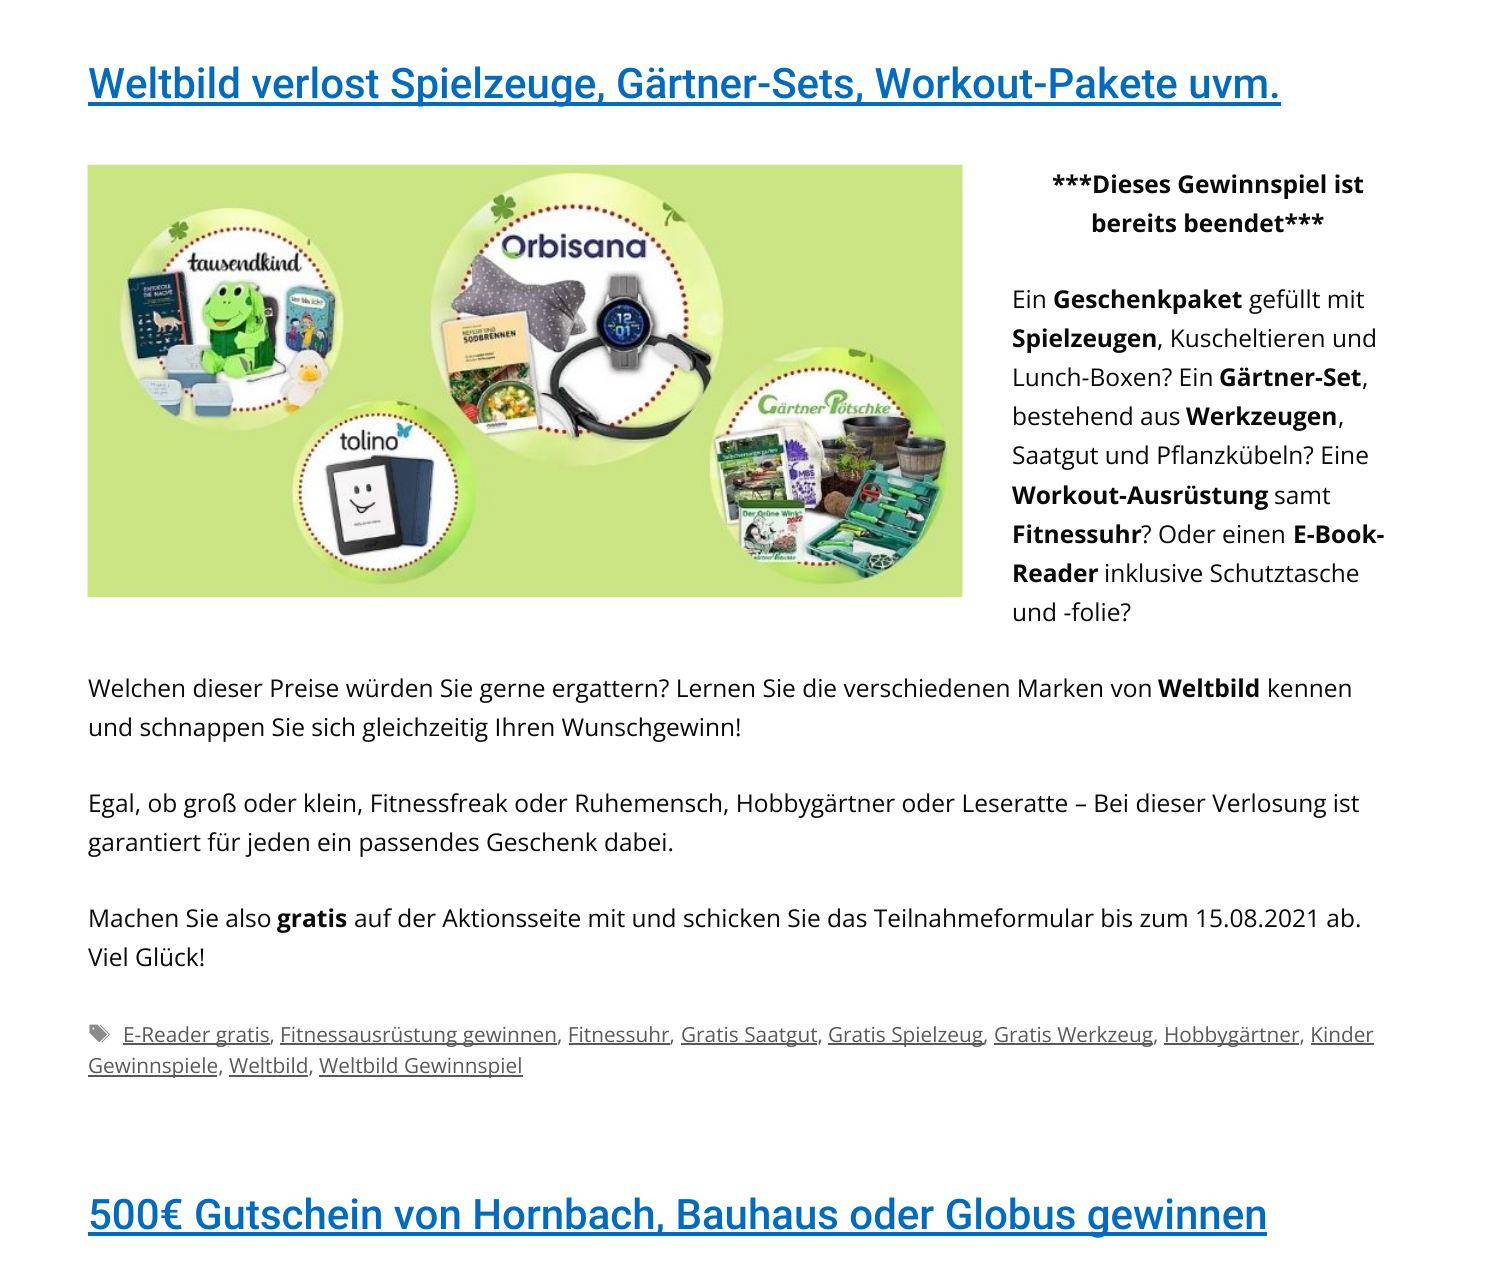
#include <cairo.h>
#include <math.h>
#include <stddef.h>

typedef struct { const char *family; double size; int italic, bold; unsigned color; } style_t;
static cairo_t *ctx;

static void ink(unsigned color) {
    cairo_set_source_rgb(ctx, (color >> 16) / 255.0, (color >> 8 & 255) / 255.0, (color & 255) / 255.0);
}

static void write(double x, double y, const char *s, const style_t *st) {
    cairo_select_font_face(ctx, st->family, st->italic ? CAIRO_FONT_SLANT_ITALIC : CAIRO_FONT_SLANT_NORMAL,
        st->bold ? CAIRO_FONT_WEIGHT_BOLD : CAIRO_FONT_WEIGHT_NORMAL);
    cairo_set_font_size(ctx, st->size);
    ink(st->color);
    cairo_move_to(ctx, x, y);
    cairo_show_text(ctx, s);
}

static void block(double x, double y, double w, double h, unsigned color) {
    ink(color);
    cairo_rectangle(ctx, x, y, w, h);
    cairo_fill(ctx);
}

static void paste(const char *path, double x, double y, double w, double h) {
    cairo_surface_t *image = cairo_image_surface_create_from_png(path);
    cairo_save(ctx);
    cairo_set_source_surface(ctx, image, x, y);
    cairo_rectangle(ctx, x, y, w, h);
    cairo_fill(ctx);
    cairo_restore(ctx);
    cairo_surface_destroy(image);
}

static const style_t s1 = {"Roboto Medium", 42, 0, 0, 0x016bc1};
static const style_t s2 = {"Open Sans", 24.5, 0, 1, 0x0a0a0a};
static const style_t s3 = {"Open Sans", 24.5, 0, 0, 0x0a0a0a};
static const style_t s4 = {"Open Sans", 20.8, 0, 0, 0x595959};

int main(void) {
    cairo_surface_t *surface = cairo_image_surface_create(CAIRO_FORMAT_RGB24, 1491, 1279);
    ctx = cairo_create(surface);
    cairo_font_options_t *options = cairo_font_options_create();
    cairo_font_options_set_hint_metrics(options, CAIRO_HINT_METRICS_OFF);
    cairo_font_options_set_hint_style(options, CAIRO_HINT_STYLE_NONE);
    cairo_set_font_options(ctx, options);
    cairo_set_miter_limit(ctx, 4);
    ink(0xffffff);
    cairo_paint(ctx);
    block(88, 102, 1193, 4, 0x016bc1);
    write(88, 98, "Weltbild verlost Spielzeuge, Gärtner-Sets, Workout-Pakete uvm.", &s1);
    paste("pic1.png", 87, 164, 876, 433);
    write(1052, 193, "***Dieses Gewinnspiel ist", &s2);
    write(1091, 232, "bereits beendet***", &s2);
    write(1012, 308, "Ein", &s3);
    write(1053, 308, "Geschenkpaket", &s2);
    write(1249, 308, "gefüllt mit", &s3);
    write(1012, 347, "Spielzeugen", &s2);
    write(1157, 347, ", Kuscheltieren und", &s3);
    write(1012, 386, "Lunch-Boxen? Ein", &s3);
    write(1219, 386, "Gärtner-Set", &s2);
    write(1362, 386, ",", &s3);
    write(1012, 425, "bestehend aus", &s3);
    write(1186, 425, "Werkzeugen", &s2);
    write(1338, 425, ",", &s3);
    write(1012, 464, "Saatgut und Pflanzkübeln? Eine", &s3);
    write(1012, 504, "Workout-Ausrüstung", &s2);
    write(1274, 504, "samt", &s3);
    write(1012, 543, "Fitnessuhr", &s2);
    write(1141, 543, "? Oder einen", &s3);
    write(1293, 543, "E-Book-", &s2);
    write(1012, 582, "Reader", &s2);
    write(1104, 582, "inklusive Schutztasche", &s3);
    write(1012, 621, "und -folie?", &s3);
    write(88, 697, "Welchen dieser Preise würden Sie gerne ergattern? Lernen Sie die verschiedenen Marken von", &s3);
    write(1158, 697, "Weltbild", &s2);
    write(1267, 697, "kennen", &s3);
    write(88, 736, "und schnappen Sie sich gleichzeitig Ihren Wunschgewinn!", &s3);
    write(88, 812, "Egal, ob groß oder klein, Fitnessfreak oder Ruhemensch, Hobbygärtner oder Leseratte – Bei dieser Verlosung ist", &s3);
    write(88, 851, "garantiert für jeden ein passendes Geschenk dabei.", &s3);
    write(88, 927, "Machen Sie also", &s3);
    write(277, 927, "gratis", &s2);
    write(354, 927, "auf der Aktionsseite mit und schicken Sie das Teilnahmeformular bis zum 15.08.2021 ab.", &s3);
    write(88, 966, "Viel Glück!", &s3);
    paste("pic2.png", 89, 1024, 21, 19);
    block(123, 1043, 147, 2, 0x595959);
    write(123, 1042, "E-Reader gratis,", &s4);
    block(280, 1043, 277, 2, 0x595959);
    write(280, 1042, "Fitnessausrüstung gewinnen, Fitnessuhr,", &s4);
    block(681, 1043, 136, 2, 0x595959);
    write(681, 1042, "Gratis Saatgut,", &s4);
    block(828, 1043, 156, 2, 0x595959);
    write(828, 1042, "Gratis Spielzeug,", &s4);
    block(994, 1043, 159, 2, 0x595959);
    write(994, 1042, "Gratis Werkzeug,", &s4);
    block(1164, 1043, 135, 2, 0x595959);
    write(1164, 1042, "Hobbygärtner, Kinder", &s4);
    block(569, 1043, 101, 2, 0x595959);
    block(88, 1075, 129, 2, 0x595959);
    write(88, 1073, "Gewinnspiele, Weltbild,", &s4);
    block(1311, 1043, 63, 2, 0x595959);
    block(319, 1075, 204, 2, 0x595959);
    write(319, 1073, "Weltbild Gewinnspiel", &s4);
    block(229, 1075, 79, 2, 0x595959);
    block(88, 1232, 1179, 4, 0x016bc1);
    write(88, 1229, "500€ Gutschein von Hornbach, Bauhaus oder Globus gewinnen", &s1);
    cairo_surface_write_to_png(surface, "screenshot.png");
    cairo_font_options_destroy(options);
    cairo_destroy(ctx);
    cairo_surface_destroy(surface);
    return 0;
}
